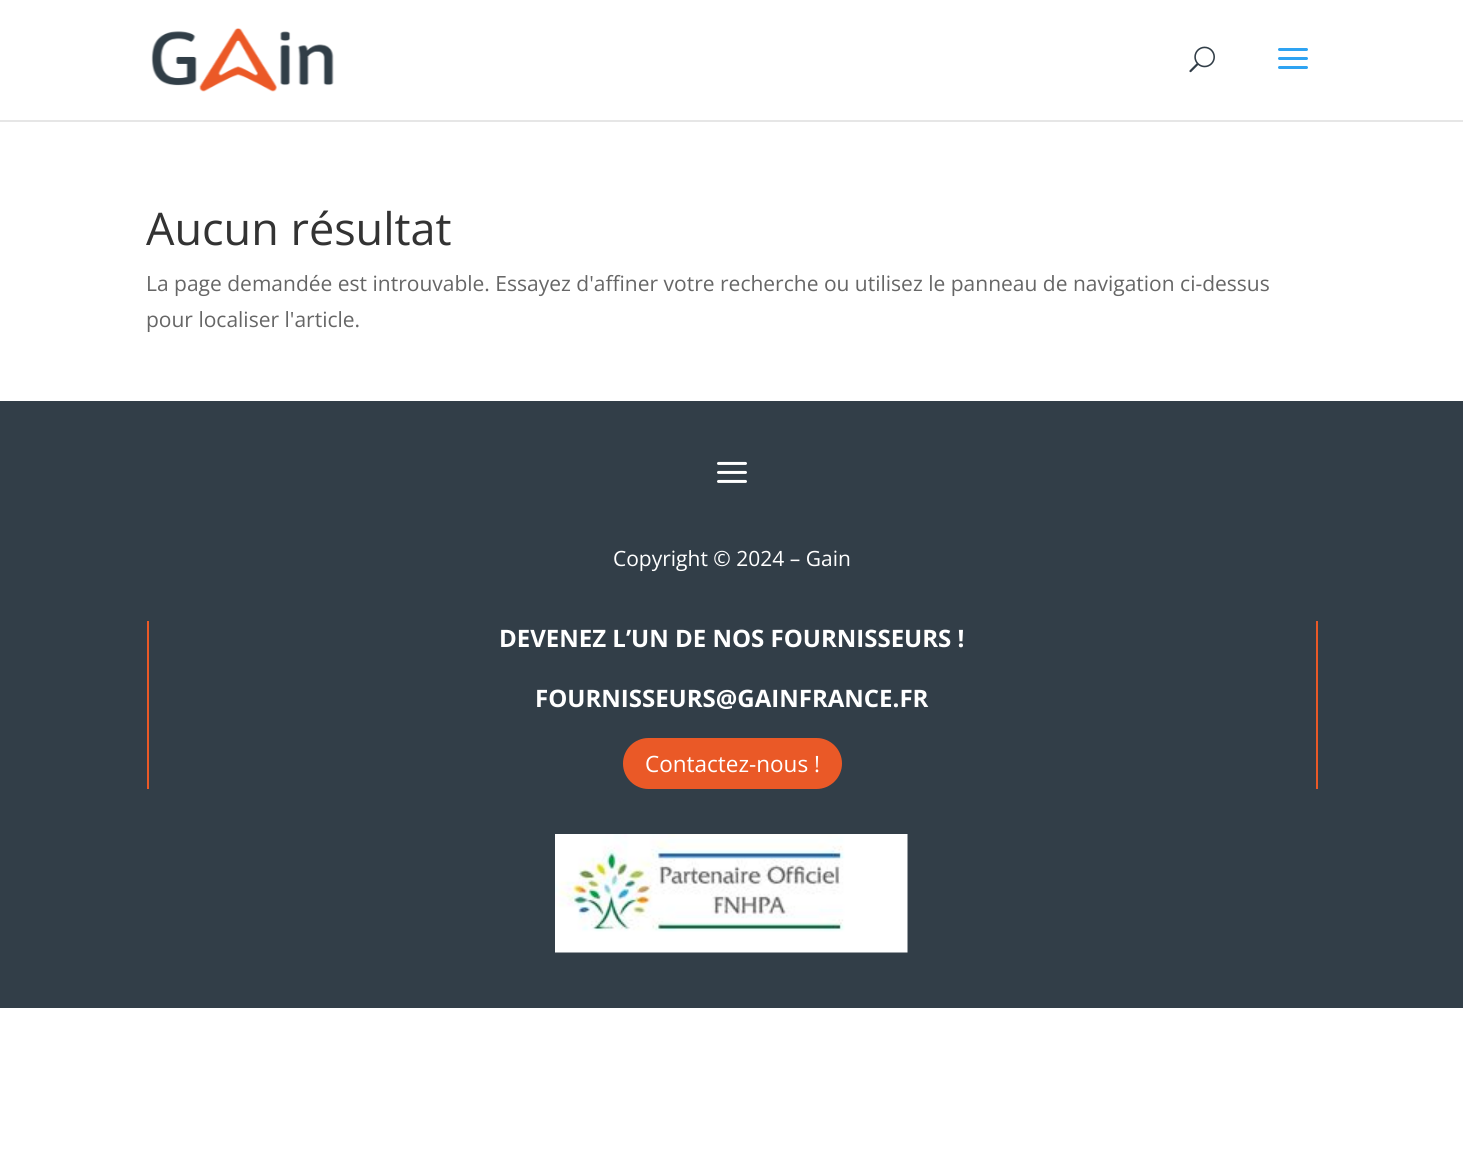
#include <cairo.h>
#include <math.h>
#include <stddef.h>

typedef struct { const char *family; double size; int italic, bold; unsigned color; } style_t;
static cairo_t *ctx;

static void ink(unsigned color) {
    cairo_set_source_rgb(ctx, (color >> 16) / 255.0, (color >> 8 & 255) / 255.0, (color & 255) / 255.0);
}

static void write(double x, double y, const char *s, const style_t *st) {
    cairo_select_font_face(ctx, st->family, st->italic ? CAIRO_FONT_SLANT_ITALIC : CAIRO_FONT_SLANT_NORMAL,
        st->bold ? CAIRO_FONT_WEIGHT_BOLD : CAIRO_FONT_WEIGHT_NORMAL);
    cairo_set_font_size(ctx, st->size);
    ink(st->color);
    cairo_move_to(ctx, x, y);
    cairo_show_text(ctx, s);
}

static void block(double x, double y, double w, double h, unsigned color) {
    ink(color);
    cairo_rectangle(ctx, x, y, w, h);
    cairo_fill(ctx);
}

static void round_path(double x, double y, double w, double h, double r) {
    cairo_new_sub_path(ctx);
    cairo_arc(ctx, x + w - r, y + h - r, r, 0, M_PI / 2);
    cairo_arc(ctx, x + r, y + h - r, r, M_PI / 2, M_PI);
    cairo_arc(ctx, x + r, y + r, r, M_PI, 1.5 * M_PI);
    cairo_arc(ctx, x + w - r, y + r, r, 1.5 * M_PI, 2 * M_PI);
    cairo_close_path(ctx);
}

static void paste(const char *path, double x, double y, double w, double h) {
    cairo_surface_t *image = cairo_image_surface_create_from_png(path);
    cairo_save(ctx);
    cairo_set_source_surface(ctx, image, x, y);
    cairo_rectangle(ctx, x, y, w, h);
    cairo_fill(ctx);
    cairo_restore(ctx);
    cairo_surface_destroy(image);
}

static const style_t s1 = {"Open Sans", 45, 0, 0, 0x333333};
static const style_t s2 = {"Open Sans", 21, 0, 0, 0x666666};
static const style_t s3 = {"Open Sans", 21, 0, 0, 0xffffff};
static const style_t s4 = {"Open Sans", 24, 0, 1, 0xffffff};
static const style_t s5 = {"Open Sans", 22.5, 0, 0, 0xffffff};

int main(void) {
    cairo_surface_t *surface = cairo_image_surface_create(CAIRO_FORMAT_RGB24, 1463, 1176);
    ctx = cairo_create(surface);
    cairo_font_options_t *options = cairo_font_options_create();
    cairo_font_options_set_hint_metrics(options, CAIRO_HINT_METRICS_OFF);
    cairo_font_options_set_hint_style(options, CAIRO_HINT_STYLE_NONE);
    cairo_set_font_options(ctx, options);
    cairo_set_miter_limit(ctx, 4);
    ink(0xffffff);
    cairo_paint(ctx);
    block(0, 120, 1463, 2, 0xe6e6e6);
    paste("pic1.png", 151, 28, 183, 64);
    paste("pic2.png", 1189, 46, 26, 27);
    paste("pic3.png", 1278, 48, 30, 21);
    write(146, 245, "Aucun résultat", &s1);
    write(146, 291, "La page demandée est introuvable. Essayez d'affiner votre recherche ou utilisez le panneau de navigation ci-dessus", &s2);
    write(146, 327, "pour localiser l'article.", &s2);
    block(0, 401, 1463, 607, 0x323e48);
    paste("pic4.png", 717, 461, 30, 22);
    write(613, 566, "Copyright © 2024 – Gain", &s3);
    block(1316, 621, 2, 168, 0xea5927);
    block(147, 621, 2, 168, 0xea5927);
    write(499, 647, "DEVENEZ L’UN DE NOS FOURNISSEURS !", &s4);
    write(535, 707, "FOURNISSEURS@GAINFRANCE.FR", &s4);
    ink(0xea5927);
    round_path(623, 738, 219, 51, 25.5);
    cairo_fill(ctx);
    write(645, 772, "Contactez-nous !", &s5);
    paste("pic5.png", 555, 834, 353, 119);
    cairo_surface_write_to_png(surface, "screenshot.png");
    cairo_font_options_destroy(options);
    cairo_destroy(ctx);
    cairo_surface_destroy(surface);
    return 0;
}
